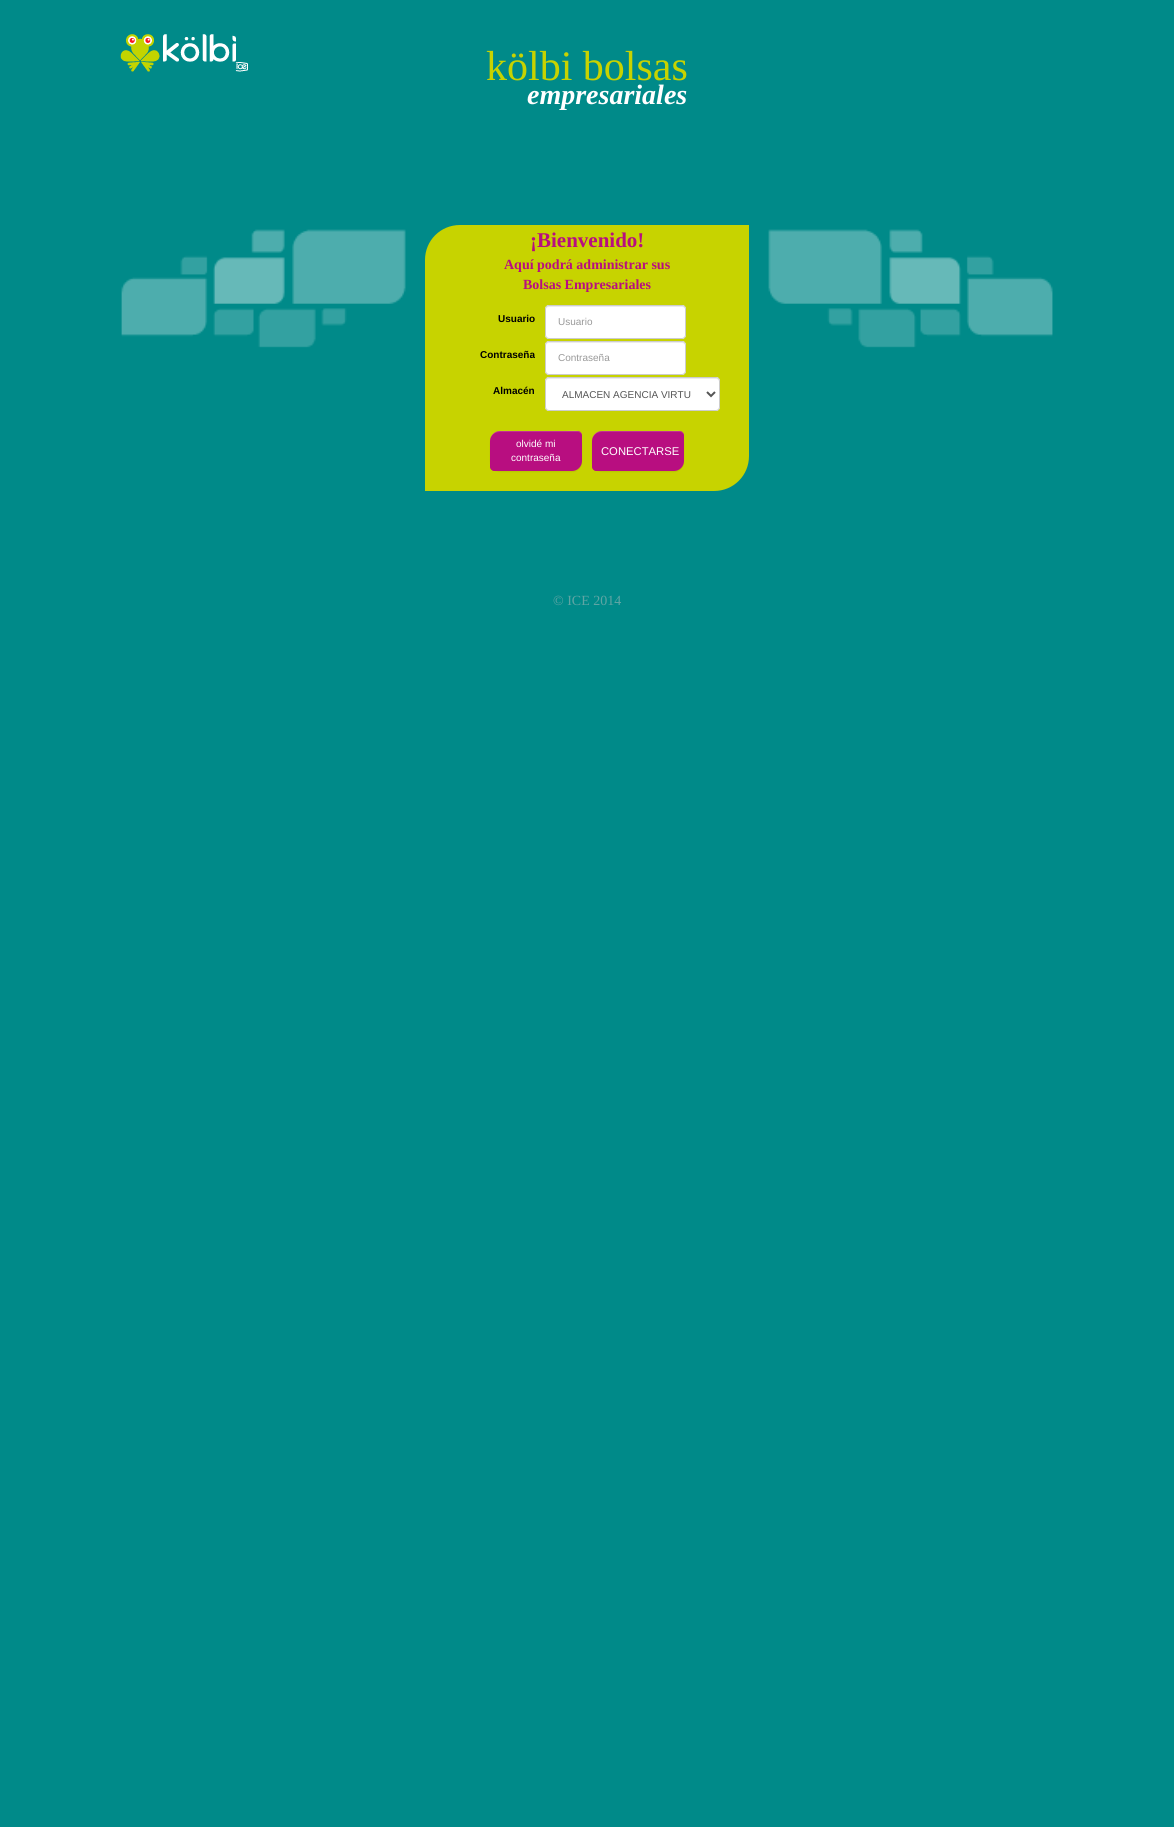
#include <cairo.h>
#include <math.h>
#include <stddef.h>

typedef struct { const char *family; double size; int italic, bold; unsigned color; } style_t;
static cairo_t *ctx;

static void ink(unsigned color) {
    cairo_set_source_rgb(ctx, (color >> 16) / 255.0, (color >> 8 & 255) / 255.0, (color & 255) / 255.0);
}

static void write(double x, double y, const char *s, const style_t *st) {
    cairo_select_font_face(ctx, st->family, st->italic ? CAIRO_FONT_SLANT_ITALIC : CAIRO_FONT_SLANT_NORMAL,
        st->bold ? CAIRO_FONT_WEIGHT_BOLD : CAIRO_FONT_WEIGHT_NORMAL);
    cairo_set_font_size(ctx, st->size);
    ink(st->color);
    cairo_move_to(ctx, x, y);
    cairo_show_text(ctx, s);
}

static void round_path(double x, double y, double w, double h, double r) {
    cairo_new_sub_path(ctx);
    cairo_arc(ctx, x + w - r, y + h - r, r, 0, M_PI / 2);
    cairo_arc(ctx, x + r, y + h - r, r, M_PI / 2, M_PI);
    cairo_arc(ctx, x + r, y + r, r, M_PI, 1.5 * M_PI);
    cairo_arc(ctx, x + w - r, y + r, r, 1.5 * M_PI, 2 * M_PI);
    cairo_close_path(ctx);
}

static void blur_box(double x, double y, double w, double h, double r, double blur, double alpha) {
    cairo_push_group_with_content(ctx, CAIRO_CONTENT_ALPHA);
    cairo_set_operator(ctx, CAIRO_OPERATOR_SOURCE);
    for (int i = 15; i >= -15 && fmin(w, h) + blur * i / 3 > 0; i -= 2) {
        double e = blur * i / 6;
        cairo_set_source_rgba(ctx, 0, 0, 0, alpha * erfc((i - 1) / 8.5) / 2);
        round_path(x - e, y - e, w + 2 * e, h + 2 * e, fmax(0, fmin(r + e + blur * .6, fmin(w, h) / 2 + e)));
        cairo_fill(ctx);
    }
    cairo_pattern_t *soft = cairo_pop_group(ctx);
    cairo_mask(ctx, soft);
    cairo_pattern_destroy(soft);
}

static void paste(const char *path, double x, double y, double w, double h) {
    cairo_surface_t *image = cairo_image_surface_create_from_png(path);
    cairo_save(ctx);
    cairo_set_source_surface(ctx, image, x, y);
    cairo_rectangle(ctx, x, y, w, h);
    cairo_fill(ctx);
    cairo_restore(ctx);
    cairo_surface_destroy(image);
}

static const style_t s1 = {"Liberation Serif", 42, 0, 0, 0xc7d300};
static const style_t s2 = {"Liberation Serif", 28, 1, 1, 0xffffff};
static const style_t s3 = {"Liberation Serif", 21, 0, 1, 0xb80e80};
static const style_t s4 = {"Liberation Serif", 14, 0, 1, 0xb80e80};
static const style_t s5 = {"Liberation Sans", 10, 0, 1, 0x000000};
static const style_t s6 = {"Liberation Sans", 10, 0, 0, 0x999999};
static const style_t s7 = {"Liberation Sans", 10, 0, 0, 0x555555};
static const style_t s8 = {"Liberation Sans", 10, 0, 0, 0xffffff};
static const style_t s9 = {"Liberation Sans", 11.25, 0, 0, 0xffffff};
static const style_t s10 = {"Liberation Serif", 14, 0, 0, 0x60a5a4};

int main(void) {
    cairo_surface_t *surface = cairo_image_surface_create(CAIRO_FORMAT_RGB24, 1174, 1827);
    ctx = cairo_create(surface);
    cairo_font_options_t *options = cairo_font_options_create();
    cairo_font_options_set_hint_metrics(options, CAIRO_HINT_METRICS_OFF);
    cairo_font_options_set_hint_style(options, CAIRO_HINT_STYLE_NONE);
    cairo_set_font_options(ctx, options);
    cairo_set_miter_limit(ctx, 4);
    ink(0x008a89);
    cairo_paint(ctx);
    paste("pic1.png", 120, 34, 128, 38);
    write(486, 80, "kölbi bolsas", &s1);
    write(527, 104, "empresariales", &s2);
    paste("pic2.png", 121, 229, 285, 119);
    ink(0xc7d300);
    cairo_new_path(ctx);
    cairo_move_to(ctx, 460, 225);
    cairo_line_to(ctx, 749, 225);
    cairo_line_to(ctx, 749, 456);
    cairo_curve_to(ctx, 749, 475.5, 733.5, 491, 714, 491);
    cairo_line_to(ctx, 425, 491);
    cairo_line_to(ctx, 425, 260);
    cairo_curve_to(ctx, 425, 240.5, 440.5, 225, 460, 225);
    cairo_close_path(ctx);
    cairo_fill(ctx);
    write(530, 247, "¡Bienvenido!", &s3);
    write(504, 269, "Aquí podrá administrar sus", &s4);
    write(523, 289, "Bolsas Empresariales", &s4);
    write(498, 322, "Usuario", &s5);
    ink(0xffffff);
    round_path(545, 305, 141, 34, 4);
    cairo_fill(ctx);
    ink(0xececec);
    cairo_new_path(ctx);
    cairo_move_to(ctx, 549, 307);
    cairo_line_to(ctx, 682, 307);
    cairo_curve_to(ctx, 684, 307, 685, 308, 685, 310);
    cairo_curve_to(ctx, 685, 308, 684, 306, 682, 306);
    cairo_line_to(ctx, 549, 306);
    cairo_curve_to(ctx, 547, 306, 546, 308, 546, 310);
    cairo_curve_to(ctx, 546, 308, 547, 307, 549, 307);
    cairo_close_path(ctx);
    cairo_fill(ctx);
    round_path(545.5, 305.5, 140, 33, 3.5);
    ink(0xcccccc);
    cairo_set_line_width(ctx, 1);
    cairo_stroke(ctx);
    write(558, 325, "Usuario", &s6);
    write(480, 358, "Contraseña", &s5);
    ink(0xffffff);
    round_path(545, 341, 141, 34, 4);
    cairo_fill(ctx);
    ink(0xececec);
    cairo_new_path(ctx);
    cairo_move_to(ctx, 549, 343);
    cairo_line_to(ctx, 682, 343);
    cairo_curve_to(ctx, 684, 343, 685, 344, 685, 346);
    cairo_curve_to(ctx, 685, 344, 684, 342, 682, 342);
    cairo_line_to(ctx, 549, 342);
    cairo_curve_to(ctx, 547, 342, 546, 344, 546, 346);
    cairo_curve_to(ctx, 546, 344, 547, 343, 549, 343);
    cairo_close_path(ctx);
    cairo_fill(ctx);
    round_path(545.5, 341.5, 140, 33, 3.5);
    ink(0xcccccc);
    cairo_stroke(ctx);
    write(558, 361, "Contraseña", &s6);
    write(493, 394, "Almacén", &s5);
    ink(0xffffff);
    round_path(545, 377, 175, 34, 4);
    cairo_fill(ctx);
    ink(0xececec);
    cairo_new_path(ctx);
    cairo_move_to(ctx, 549, 379);
    cairo_line_to(ctx, 716, 379);
    cairo_curve_to(ctx, 718, 379, 719, 380, 719, 382);
    cairo_line_to(ctx, 719, 381);
    cairo_curve_to(ctx, 719, 379, 718, 378, 716, 378);
    cairo_line_to(ctx, 549, 378);
    cairo_curve_to(ctx, 547, 378, 546, 379, 546, 381);
    cairo_line_to(ctx, 546, 382);
    cairo_curve_to(ctx, 546, 380, 547, 379, 549, 379);
    cairo_close_path(ctx);
    cairo_fill(ctx);
    round_path(545.5, 377.5, 174, 33, 3.5);
    ink(0xcccccc);
    cairo_stroke(ctx);
    cairo_new_path(ctx);
    cairo_move_to(ctx, 707, 392);
    cairo_line_to(ctx, 711, 396);
    cairo_line_to(ctx, 715, 392);
    ink(0x555555);
    cairo_set_line_width(ctx, 2);
    cairo_stroke(ctx);
    write(562, 398, "ALMACEN AGENCIA VIRTU", &s7);
    ink(0x000000);
    blur_box(490, 432, 92, 40, 10, 0.5, 0.07);
    ink(0xb80e80);
    cairo_new_path(ctx);
    cairo_move_to(ctx, 500, 431);
    cairo_line_to(ctx, 578, 431);
    cairo_curve_to(ctx, 580, 431, 582, 433, 582, 435);
    cairo_line_to(ctx, 582, 461);
    cairo_curve_to(ctx, 582, 466.5, 577.5, 471, 572, 471);
    cairo_line_to(ctx, 494, 471);
    cairo_curve_to(ctx, 492, 471, 490, 469, 490, 467);
    cairo_line_to(ctx, 490, 441);
    cairo_curve_to(ctx, 490, 435.5, 494.5, 431, 500, 431);
    cairo_close_path(ctx);
    cairo_fill(ctx);
    cairo_set_source_rgba(ctx, 1, 1, 1, 0.15);
    cairo_new_path(ctx);
    cairo_move_to(ctx, 500, 432);
    cairo_line_to(ctx, 578, 432);
    cairo_curve_to(ctx, 580, 432, 582, 434, 582, 436);
    cairo_curve_to(ctx, 582, 428, 570, 431, 565, 431);
    cairo_line_to(ctx, 513, 431);
    cairo_curve_to(ctx, 503, 431, 490, 428, 490, 442);
    cairo_curve_to(ctx, 490, 436, 494, 432, 500, 432);
    cairo_close_path(ctx);
    cairo_fill(ctx);
    write(516, 447, "olvidé mi", &s8);
    write(511, 461, "contraseña", &s8);
    ink(0x000000);
    blur_box(592, 432, 92, 40, 10, 0.5, 0.07);
    ink(0xb80e80);
    cairo_new_path(ctx);
    cairo_move_to(ctx, 602, 431);
    cairo_line_to(ctx, 680, 431);
    cairo_curve_to(ctx, 682, 431, 684, 433, 684, 435);
    cairo_line_to(ctx, 684, 461);
    cairo_curve_to(ctx, 684, 466.5, 679.5, 471, 674, 471);
    cairo_line_to(ctx, 596, 471);
    cairo_curve_to(ctx, 594, 471, 592, 469, 592, 467);
    cairo_line_to(ctx, 592, 441);
    cairo_curve_to(ctx, 592, 435.5, 596.5, 431, 602, 431);
    cairo_close_path(ctx);
    cairo_fill(ctx);
    cairo_set_source_rgba(ctx, 1, 1, 1, 0.15);
    cairo_new_path(ctx);
    cairo_move_to(ctx, 602, 432);
    cairo_line_to(ctx, 680, 432);
    cairo_curve_to(ctx, 682, 432, 684, 434, 684, 436);
    cairo_curve_to(ctx, 684, 428, 672, 431, 667, 431);
    cairo_line_to(ctx, 615, 431);
    cairo_curve_to(ctx, 605, 431, 592, 428, 592, 442);
    cairo_curve_to(ctx, 592, 436, 596, 432, 602, 432);
    cairo_close_path(ctx);
    cairo_fill(ctx);
    write(601, 455, "CONECTARSE", &s9);
    paste("pic3.png", 768, 229, 285, 119);
    write(553, 605, "© ICE 2014", &s10);
    cairo_surface_write_to_png(surface, "screenshot.png");
    cairo_font_options_destroy(options);
    cairo_destroy(ctx);
    cairo_surface_destroy(surface);
    return 0;
}
